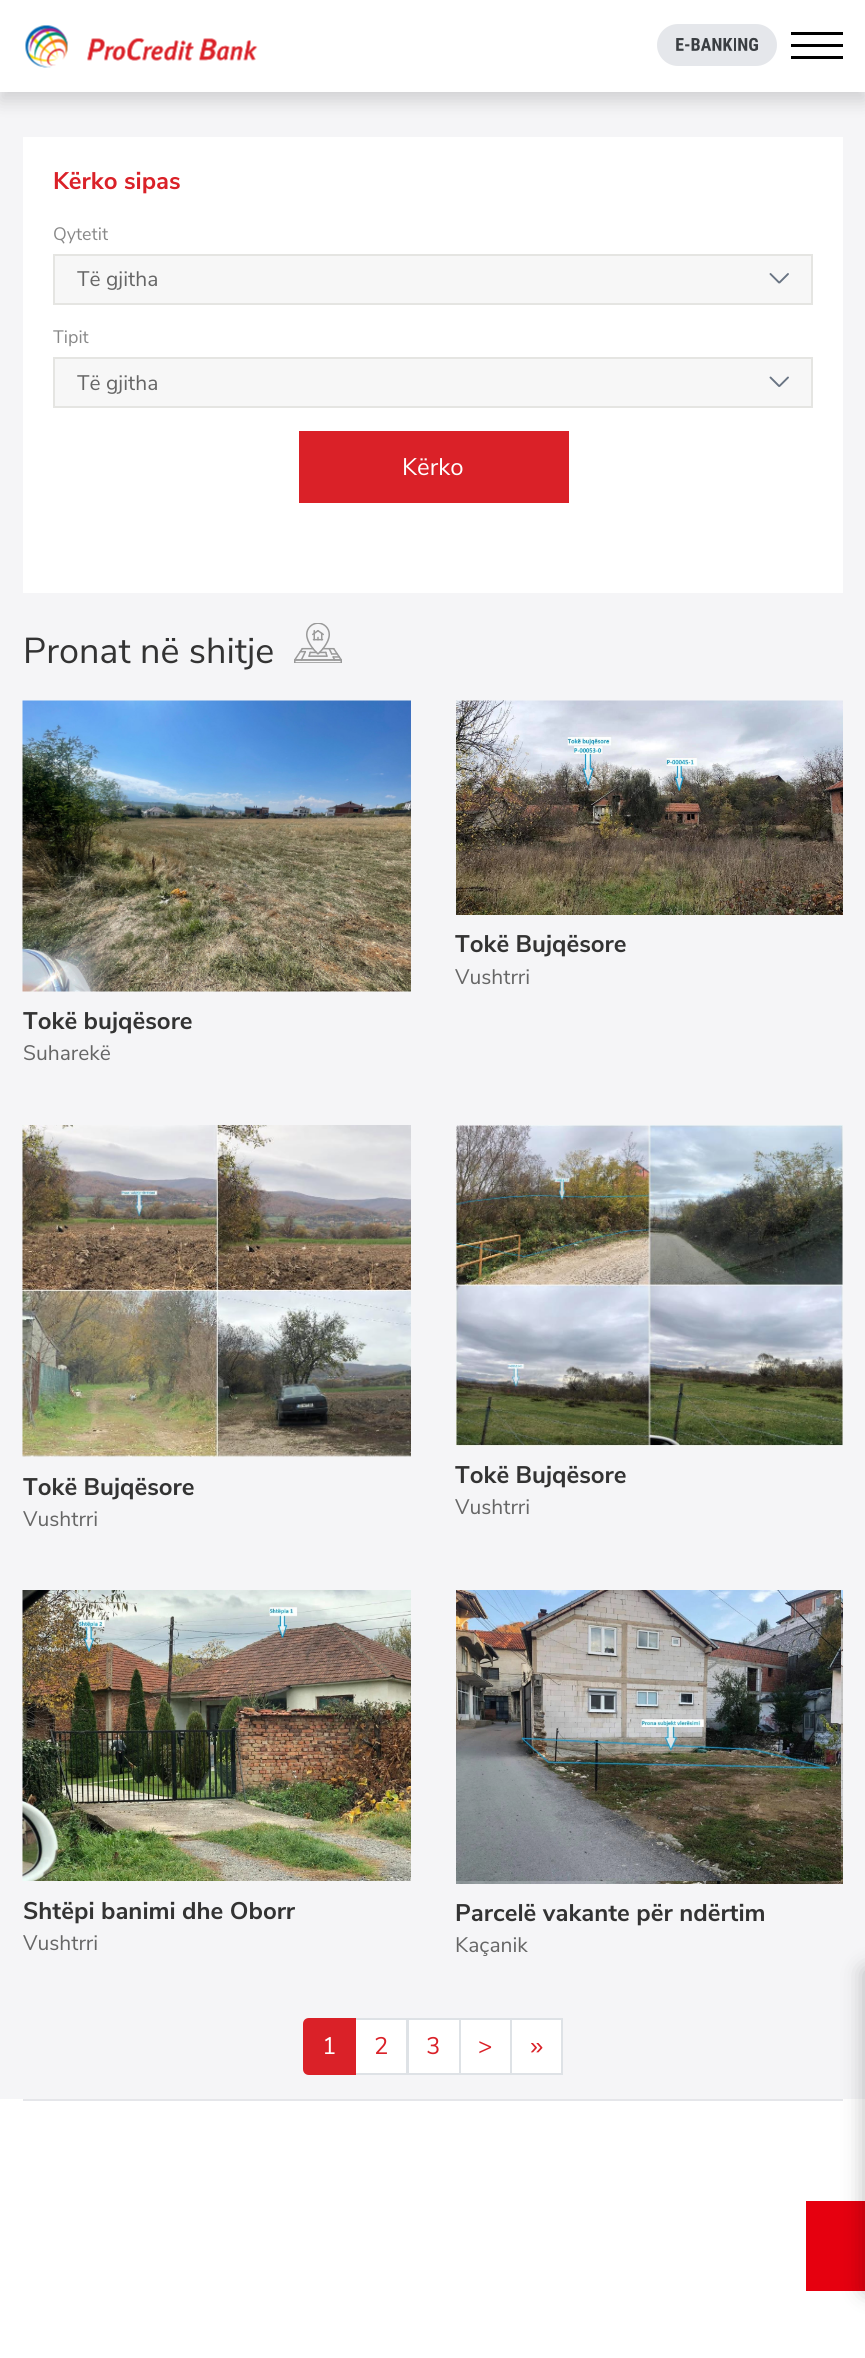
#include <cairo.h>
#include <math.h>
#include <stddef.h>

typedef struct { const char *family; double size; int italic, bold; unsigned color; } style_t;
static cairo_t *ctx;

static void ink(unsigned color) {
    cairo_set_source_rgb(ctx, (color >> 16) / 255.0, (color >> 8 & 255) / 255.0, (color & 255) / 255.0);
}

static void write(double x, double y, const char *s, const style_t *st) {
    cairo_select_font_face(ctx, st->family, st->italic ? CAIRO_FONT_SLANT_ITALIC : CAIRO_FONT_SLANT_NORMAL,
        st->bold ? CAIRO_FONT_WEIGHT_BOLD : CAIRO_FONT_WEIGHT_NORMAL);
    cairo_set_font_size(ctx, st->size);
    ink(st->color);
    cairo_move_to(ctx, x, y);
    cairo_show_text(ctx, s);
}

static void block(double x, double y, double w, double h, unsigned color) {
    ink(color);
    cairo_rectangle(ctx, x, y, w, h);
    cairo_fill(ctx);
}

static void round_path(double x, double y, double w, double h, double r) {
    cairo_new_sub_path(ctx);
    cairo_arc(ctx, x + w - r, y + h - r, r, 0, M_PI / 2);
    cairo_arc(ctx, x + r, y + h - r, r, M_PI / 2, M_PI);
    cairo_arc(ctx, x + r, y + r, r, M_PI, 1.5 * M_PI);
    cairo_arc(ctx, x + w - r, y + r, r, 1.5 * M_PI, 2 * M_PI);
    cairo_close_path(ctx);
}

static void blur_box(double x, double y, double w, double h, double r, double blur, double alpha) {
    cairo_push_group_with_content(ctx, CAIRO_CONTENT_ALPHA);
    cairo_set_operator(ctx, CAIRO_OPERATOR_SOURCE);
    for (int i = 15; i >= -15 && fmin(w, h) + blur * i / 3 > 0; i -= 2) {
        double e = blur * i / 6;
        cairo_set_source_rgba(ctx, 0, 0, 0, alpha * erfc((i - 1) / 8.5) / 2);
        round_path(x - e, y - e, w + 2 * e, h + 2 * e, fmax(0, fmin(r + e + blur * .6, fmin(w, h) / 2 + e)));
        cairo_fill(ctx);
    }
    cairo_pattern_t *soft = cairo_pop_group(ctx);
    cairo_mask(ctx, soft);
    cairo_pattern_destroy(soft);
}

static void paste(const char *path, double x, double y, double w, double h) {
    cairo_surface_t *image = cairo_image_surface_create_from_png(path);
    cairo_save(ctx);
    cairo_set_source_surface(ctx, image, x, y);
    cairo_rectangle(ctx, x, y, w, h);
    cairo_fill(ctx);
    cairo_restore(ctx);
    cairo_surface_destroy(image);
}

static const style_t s1 = {"Nunito Sans", 24, 0, 1, 0xda2128};
static const style_t s2 = {"Nunito Sans", 18, 0, 0, 0x888888};
static const style_t s3 = {"Nunito Sans", 21, 0, 0, 0x666666};
static const style_t s4 = {"Nunito Sans", 24, 0, 0, 0xffffff};
static const style_t s5 = {"Nunito Sans", 36, 0, 0, 0x333333};
static const style_t s6 = {"Nunito Sans", 24, 0, 1, 0x333333};
static const style_t s7 = {"Nunito Sans", 24, 0, 0, 0xda2128};
static const style_t s8 = {"Liberation Sans", 24, 0, 0, 0xda2128};

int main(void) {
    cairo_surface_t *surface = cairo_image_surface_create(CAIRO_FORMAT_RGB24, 865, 2358);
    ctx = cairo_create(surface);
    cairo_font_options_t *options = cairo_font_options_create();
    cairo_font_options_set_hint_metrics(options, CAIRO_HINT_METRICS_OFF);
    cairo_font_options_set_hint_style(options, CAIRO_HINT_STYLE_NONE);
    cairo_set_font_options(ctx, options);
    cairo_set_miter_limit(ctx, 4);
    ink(0xf5f5f7);
    cairo_paint(ctx);
    ink(0x000000);
    blur_box(0, 9, 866, 92, 0, 9, 0.15);
    block(0, 0, 865, 92, 0xffffff);
    paste("pic1.png", 25, 25, 233, 43);
    paste("pic2.png", 657, 24, 120, 42);
    block(791, 32, 52, 3, 0x000000);
    block(791, 44, 52, 3, 0x000000);
    block(791, 56, 52, 3, 0x000000);
    block(23, 137, 820, 456, 0xffffff);
    write(53, 189, "Kërko sipas", &s1);
    write(53, 240, "Qytetit", &s2);
    ink(0xf7f7f7);
    cairo_rectangle(ctx, 54, 255, 758, 49);
    cairo_fill_preserve(ctx);
    ink(0xe5e5e2);
    cairo_stroke(ctx);
    write(77, 286, "Të gjitha", &s3);
    cairo_new_path(ctx);
    cairo_move_to(ctx, 779, 282.5);
    cairo_line_to(ctx, 770.5, 274);
    cairo_move_to(ctx, 788, 274);
    cairo_line_to(ctx, 779.5, 282.5);
    ink(0x697483);
    cairo_set_line_width(ctx, 1.9);
    cairo_set_line_cap(ctx, CAIRO_LINE_CAP_ROUND);
    cairo_set_line_join(ctx, CAIRO_LINE_JOIN_ROUND);
    cairo_stroke(ctx);
    write(53, 343, "Tipit", &s2);
    ink(0xf7f7f7);
    cairo_rectangle(ctx, 54, 358, 758, 49);
    cairo_fill_preserve(ctx);
    ink(0xe5e5e2);
    cairo_set_line_width(ctx, 2);
    cairo_set_line_cap(ctx, CAIRO_LINE_CAP_BUTT);
    cairo_set_line_join(ctx, CAIRO_LINE_JOIN_MITER);
    cairo_stroke(ctx);
    write(77, 390, "Të gjitha", &s3);
    cairo_new_path(ctx);
    cairo_move_to(ctx, 779, 386);
    cairo_line_to(ctx, 770.5, 377.5);
    cairo_move_to(ctx, 788, 377.5);
    cairo_line_to(ctx, 779.5, 386);
    ink(0x697483);
    cairo_set_line_width(ctx, 1.9);
    cairo_set_line_cap(ctx, CAIRO_LINE_CAP_ROUND);
    cairo_set_line_join(ctx, CAIRO_LINE_JOIN_ROUND);
    cairo_stroke(ctx);
    block(299, 431, 270, 72, 0xda2128);
    write(402, 475, "Kërko", &s4);
    write(23, 663, "Pronat në shitje", &s5);
    paste("pic3.png", 294, 623, 48, 40);
    paste("pic4.png", 456, 700, 387, 215);
    write(455, 952, "Tokë Bujqësore", &s6);
    write(455, 984, "Vushtrri", &s3);
    paste("pic5.png", 22, 700, 389, 292);
    write(23, 1029, "Tokë bujqësore", &s6);
    write(23, 1060, "Suharekë", &s3);
    paste("pic6.png", 22, 1125, 389, 332);
    write(23, 1495, "Tokë Bujqësore", &s6);
    write(23, 1526, "Vushtrri", &s3);
    paste("pic7.png", 456, 1125, 387, 321);
    write(455, 1483, "Tokë Bujqësore", &s6);
    write(455, 1514, "Vushtrri", &s3);
    paste("pic8.png", 22, 1590, 389, 291);
    write(23, 1919, "Shtëpi banimi dhe Oborr", &s6);
    write(23, 1950, "Vushtrri", &s3);
    paste("pic9.png", 456, 1590, 387, 294);
    write(455, 1921, "Parcelë vakante për ndërtim", &s6);
    write(455, 1952, "Kaçanik", &s3);
    ink(0xffffff);
    cairo_rectangle(ctx, 355, 2019, 52, 55);
    cairo_fill_preserve(ctx);
    ink(0xdee2e6);
    cairo_set_line_width(ctx, 2);
    cairo_set_line_cap(ctx, CAIRO_LINE_CAP_BUTT);
    cairo_set_line_join(ctx, CAIRO_LINE_JOIN_MITER);
    cairo_stroke(ctx);
    ink(0xda2128);
    cairo_new_path(ctx);
    cairo_move_to(ctx, 309, 2019);
    cairo_line_to(ctx, 355, 2019);
    cairo_line_to(ctx, 355, 2074);
    cairo_line_to(ctx, 309, 2074);
    cairo_curve_to(ctx, 306, 2074, 304, 2072, 304, 2069);
    cairo_line_to(ctx, 304, 2024);
    cairo_curve_to(ctx, 304, 2021, 306, 2019, 309, 2019);
    cairo_close_path(ctx);
    cairo_fill_preserve(ctx);
    cairo_stroke(ctx);
    write(322, 2054, "1", &s4);
    write(374, 2054, "2", &s7);
    ink(0xffffff);
    cairo_rectangle(ctx, 408, 2019, 52, 55);
    cairo_fill_preserve(ctx);
    ink(0xdee2e6);
    cairo_stroke(ctx);
    write(426, 2054, "3", &s7);
    ink(0xffffff);
    cairo_rectangle(ctx, 460, 2019, 51, 55);
    cairo_fill_preserve(ctx);
    ink(0xdee2e6);
    cairo_stroke(ctx);
    write(478, 2054, ">", &s7);
    ink(0xffffff);
    cairo_rectangle(ctx, 511, 2019, 51, 55);
    cairo_fill_preserve(ctx);
    ink(0xdee2e6);
    cairo_stroke(ctx);
    write(530, 2054, "»", &s8);
    block(0, 2099, 865, 259, 0xffffff);
    block(806, 2201, 59, 90, 0xe6000f);
    block(23, 2099, 820, 2, 0xe5e6ea);
    ink(0x000000);
    blur_box(864, 1970, 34, 321, 0, 11, 0.25);
    cairo_surface_write_to_png(surface, "screenshot.png");
    cairo_font_options_destroy(options);
    cairo_destroy(ctx);
    cairo_surface_destroy(surface);
    return 0;
}
